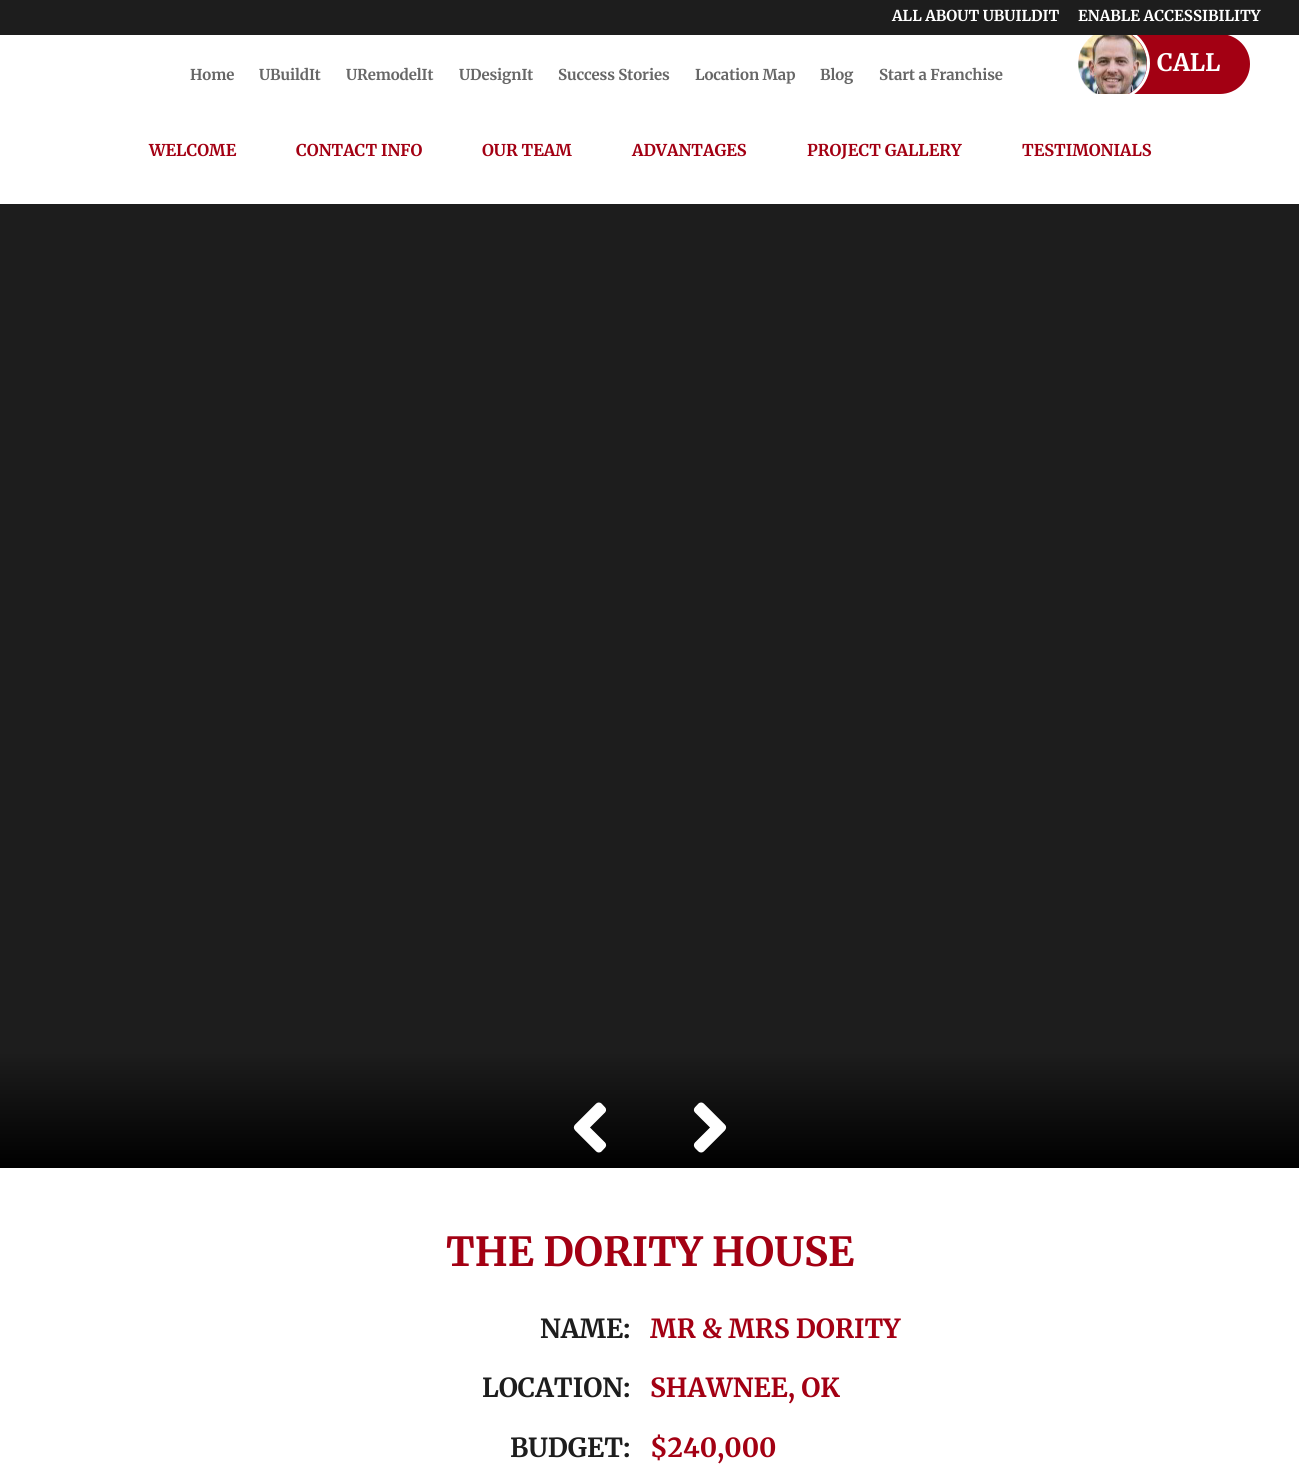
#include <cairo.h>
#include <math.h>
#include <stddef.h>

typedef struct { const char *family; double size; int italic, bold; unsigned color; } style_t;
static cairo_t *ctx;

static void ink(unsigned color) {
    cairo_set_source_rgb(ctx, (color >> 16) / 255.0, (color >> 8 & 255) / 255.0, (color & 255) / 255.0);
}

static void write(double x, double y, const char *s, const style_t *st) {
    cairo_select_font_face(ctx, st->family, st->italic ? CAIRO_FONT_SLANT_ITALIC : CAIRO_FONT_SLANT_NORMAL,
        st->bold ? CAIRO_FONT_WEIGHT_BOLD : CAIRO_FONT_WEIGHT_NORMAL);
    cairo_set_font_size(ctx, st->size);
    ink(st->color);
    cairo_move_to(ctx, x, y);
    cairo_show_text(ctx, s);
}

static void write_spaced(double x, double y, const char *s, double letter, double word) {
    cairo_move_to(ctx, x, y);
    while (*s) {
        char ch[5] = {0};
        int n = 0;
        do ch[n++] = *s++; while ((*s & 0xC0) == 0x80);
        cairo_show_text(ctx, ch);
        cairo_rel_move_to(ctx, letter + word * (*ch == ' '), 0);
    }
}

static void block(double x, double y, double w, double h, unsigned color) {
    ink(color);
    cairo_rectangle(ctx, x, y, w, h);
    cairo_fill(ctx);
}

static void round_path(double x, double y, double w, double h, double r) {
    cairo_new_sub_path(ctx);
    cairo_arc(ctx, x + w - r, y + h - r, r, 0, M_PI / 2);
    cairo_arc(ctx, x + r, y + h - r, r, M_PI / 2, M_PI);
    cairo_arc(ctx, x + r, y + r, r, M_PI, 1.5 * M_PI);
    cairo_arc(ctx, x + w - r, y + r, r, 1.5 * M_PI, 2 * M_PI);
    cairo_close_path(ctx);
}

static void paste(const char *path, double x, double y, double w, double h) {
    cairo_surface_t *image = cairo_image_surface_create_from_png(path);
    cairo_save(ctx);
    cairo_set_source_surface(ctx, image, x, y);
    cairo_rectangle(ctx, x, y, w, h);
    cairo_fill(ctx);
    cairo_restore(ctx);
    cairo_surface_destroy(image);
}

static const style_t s1 = {"Merriweather", 15, 0, 1, 0xffffff};
static const style_t s2 = {"Merriweather", 24, 0, 1, 0xffffff};
static const style_t s3 = {"Merriweather", 16.25, 0, 1, 0xa30013};
static const style_t s4 = {"Merriweather", 40, 0, 1, 0xa30013};
static const style_t s5 = {"Merriweather", 26.25, 0, 1, 0x1d1d1d};
static const style_t s6 = {"Merriweather", 26.25, 0, 1, 0xa30013};

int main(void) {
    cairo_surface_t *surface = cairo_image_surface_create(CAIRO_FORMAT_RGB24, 1299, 1482);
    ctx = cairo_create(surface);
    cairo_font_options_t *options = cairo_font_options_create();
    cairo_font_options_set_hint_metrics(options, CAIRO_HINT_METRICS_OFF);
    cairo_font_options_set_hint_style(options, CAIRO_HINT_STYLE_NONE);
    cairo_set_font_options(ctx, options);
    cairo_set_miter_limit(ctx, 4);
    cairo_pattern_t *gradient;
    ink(0xffffff);
    cairo_paint(ctx);
    ink(0xa30013);
    round_path(1083, 34, 167, 60, 30);
    cairo_fill(ctx);
    cairo_arc(ctx, 1112.5, 63.5, 36, 0, 2 * M_PI);
    ink(0xffffff);
    cairo_set_line_width(ctx, 3);
    cairo_stroke(ctx);
    block(0, 0, 1299, 35, 0x1d1d1d);
    write(892, 21, "ALL ABOUT UBUILDIT", &s1);
    write(1078, 21, "ENABLE ACCESSIBILITY", &s1);
    paste("pic1.png", 1078, 35, 69, 59);
    write(1157, 71, "CALL", &s2);
    cairo_set_font_size(ctx, 15);
    ink(0x676767);
    write_spaced(190, 80, "Home", -0.1, 0);
    write_spaced(259, 80, "UBuildIt", -0.1, 0);
    write_spaced(346, 80, "URemodelIt", -0.1, 0);
    write_spaced(459, 80, "UDesignIt", -0.1, 0);
    write_spaced(558, 80, "Success Stories", -0.1, 0);
    write_spaced(695, 80, "Location Map", -0.1, 0);
    write_spaced(820, 80, "Blog", -0.1, 0);
    write_spaced(879, 80, "Start a Franchise", -0.1, 0);
    write(149, 156, "WELCOME", &s3);
    write(296, 156, "CONTACT INFO", &s3);
    write(482, 156, "OUR TEAM", &s3);
    write(632, 156, "ADVANTAGES", &s3);
    write(807, 156, "PROJECT GALLERY", &s3);
    write(1022, 156, "TESTIMONIALS", &s3);
    block(0, 204, 1299, 849, 0x1d1d1d);
    gradient = cairo_pattern_create_linear(650, 1052, 650, 1168);
    cairo_pattern_add_color_stop_rgba(gradient, 0, 0.114, 0.114, 0.114, 1);
    cairo_pattern_add_color_stop_rgba(gradient, 1, 0, 0, 0, 1);
    cairo_set_source(ctx, gradient);
    cairo_pattern_destroy(gradient);
    cairo_rectangle(ctx, 0, 1053, 1299, 115);
    cairo_fill(ctx);
    paste("pic2.png", 573, 1102, 34, 51);
    paste("pic3.png", 693, 1102, 34, 51);
    write(446, 1266, "THE DORITY HOUSE", &s4);
    write(540, 1338, "NAME:", &s5);
    write(650, 1338, "MR & MRS DORITY", &s6);
    write(482, 1397, "LOCATION:", &s5);
    write(650, 1397, "SHAWNEE, OK", &s6);
    write(510, 1457, "BUDGET:", &s5);
    write(650, 1457, "$240,000", &s6);
    cairo_surface_write_to_png(surface, "screenshot.png");
    cairo_font_options_destroy(options);
    cairo_destroy(ctx);
    cairo_surface_destroy(surface);
    return 0;
}
